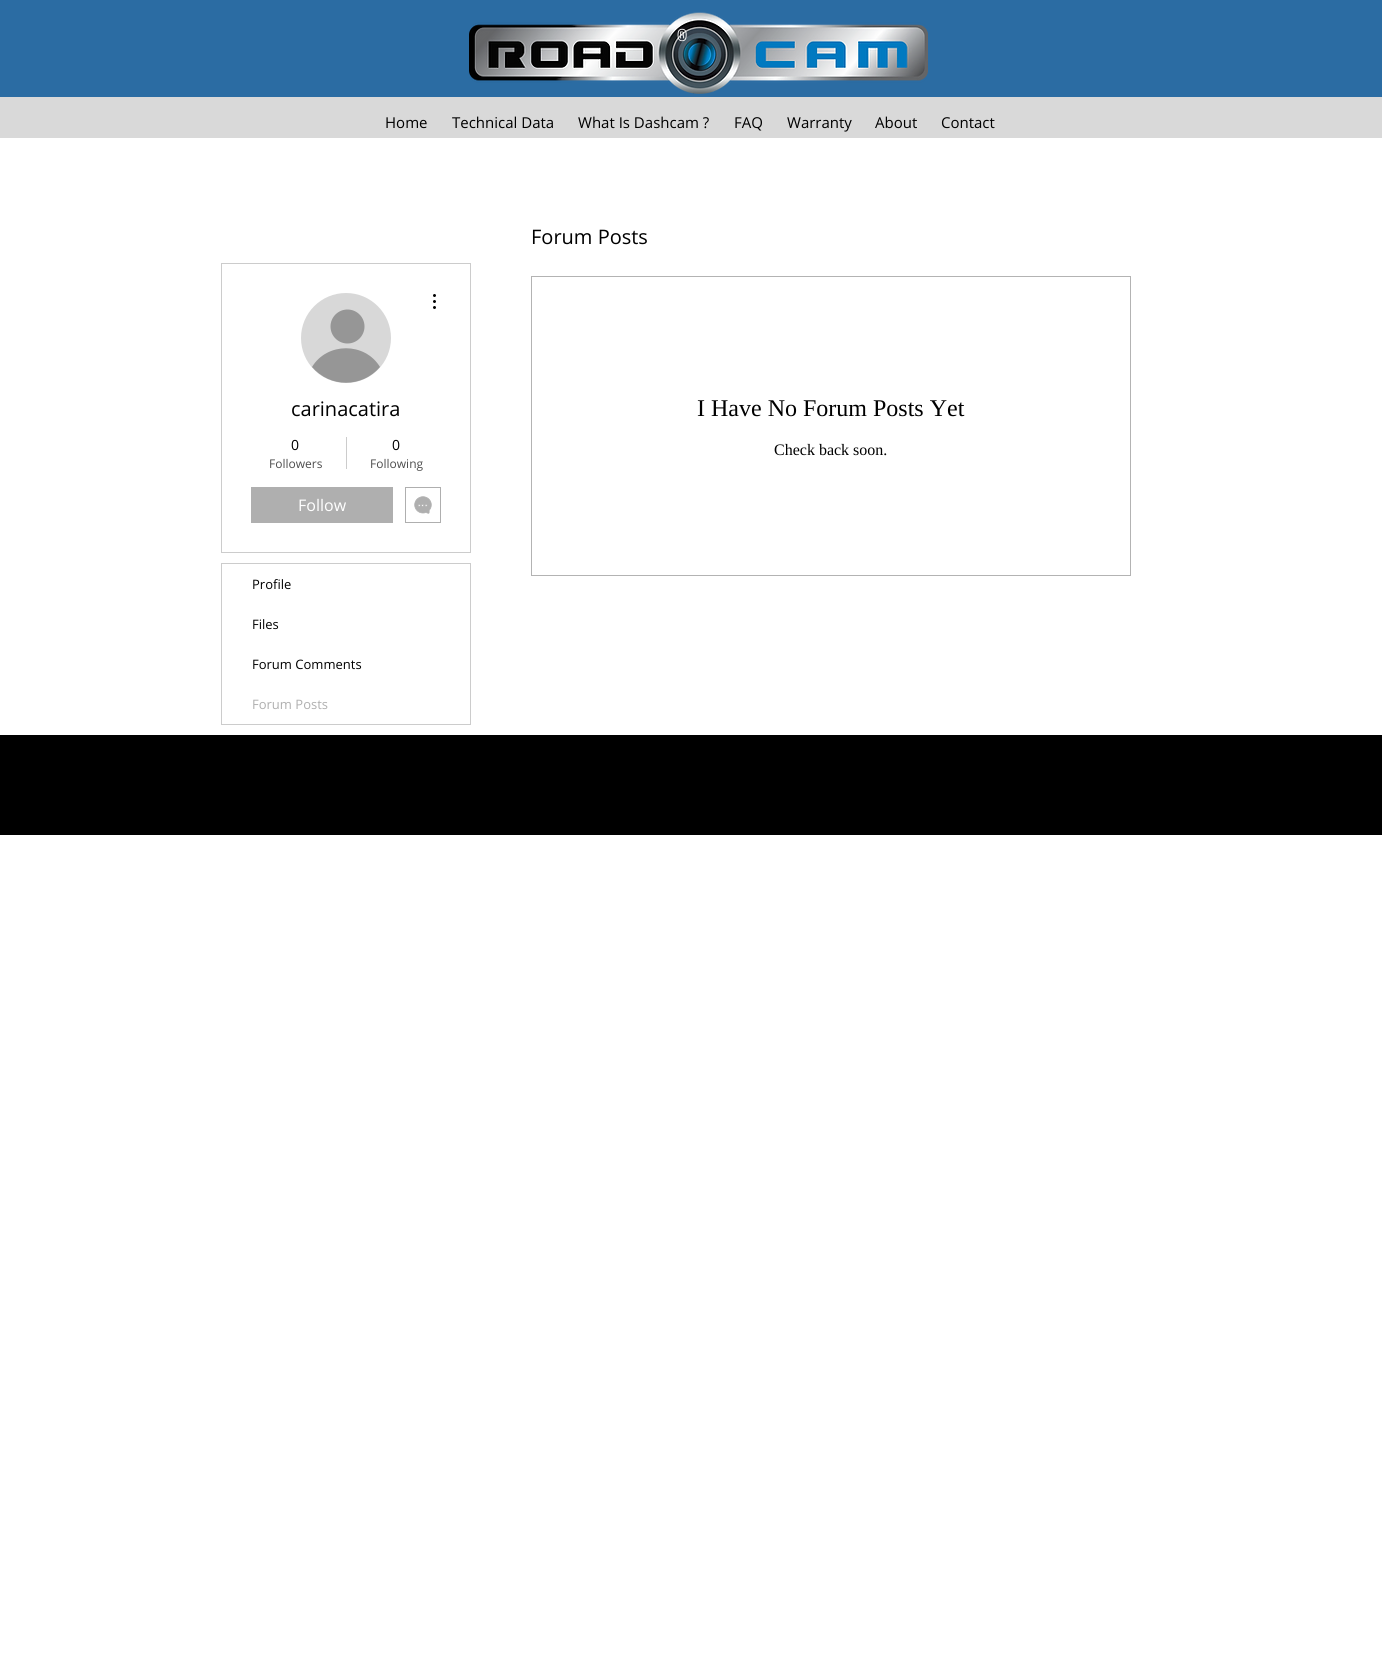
#include <cairo.h>
#include <math.h>
#include <stddef.h>

typedef struct { const char *family; double size; int italic, bold; unsigned color; } style_t;
static cairo_t *ctx;

static void ink(unsigned color) {
    cairo_set_source_rgb(ctx, (color >> 16) / 255.0, (color >> 8 & 255) / 255.0, (color & 255) / 255.0);
}

static void write(double x, double y, const char *s, const style_t *st) {
    cairo_select_font_face(ctx, st->family, st->italic ? CAIRO_FONT_SLANT_ITALIC : CAIRO_FONT_SLANT_NORMAL,
        st->bold ? CAIRO_FONT_WEIGHT_BOLD : CAIRO_FONT_WEIGHT_NORMAL);
    cairo_set_font_size(ctx, st->size);
    ink(st->color);
    cairo_move_to(ctx, x, y);
    cairo_show_text(ctx, s);
}

static void block(double x, double y, double w, double h, unsigned color) {
    ink(color);
    cairo_rectangle(ctx, x, y, w, h);
    cairo_fill(ctx);
}

static void paste(const char *path, double x, double y, double w, double h) {
    cairo_surface_t *image = cairo_image_surface_create_from_png(path);
    cairo_save(ctx);
    cairo_set_source_surface(ctx, image, x, y);
    cairo_rectangle(ctx, x, y, w, h);
    cairo_fill(ctx);
    cairo_restore(ctx);
    cairo_surface_destroy(image);
}

static const style_t s1 = {"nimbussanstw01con", 18, 0, 0, 0xffffff};
static const style_t s2 = {"Open Sans", 15, 0, 0, 0x000000};
static const style_t s3 = {"Open Sans", 20, 0, 0, 0x000000};
static const style_t s4 = {"Liberation Serif", 24, 0, 0, 0x000000};
static const style_t s5 = {"Liberation Serif", 16, 0, 0, 0x000000};
static const style_t s6 = {"Open Sans", 14, 0, 0, 0x000000};
static const style_t s7 = {"Open Sans", 12, 0, 0, 0x4d4d4d};
static const style_t s8 = {"Open Sans", 16, 0, 0, 0xffffff};
static const style_t s9 = {"Open Sans", 13, 0, 0, 0x000000};
static const style_t s10 = {"Open Sans", 13, 0, 0, 0xafafaf};

int main(void) {
    cairo_surface_t *surface = cairo_image_surface_create(CAIRO_FORMAT_RGB24, 1382, 1666);
    ctx = cairo_create(surface);
    cairo_font_options_t *options = cairo_font_options_create();
    cairo_font_options_set_hint_metrics(options, CAIRO_HINT_METRICS_OFF);
    cairo_font_options_set_hint_style(options, CAIRO_HINT_STYLE_NONE);
    cairo_set_font_options(ctx, options);
    cairo_set_miter_limit(ctx, 4);
    ink(0xffffff);
    cairo_paint(ctx);
    block(0, 0, 1382, 97, 0x2b6ca3);
    paste("pic1.png", 469, 12, 459, 82);
    write(677, 41, "®", &s1);
    block(0, 97, 1382, 41, 0xd9d9d9);
    write(385, 128, "Home", &s2);
    write(452, 128, "Technical Data", &s2);
    write(578, 128, "What Is Dashcam ?", &s2);
    write(734, 128, "FAQ", &s2);
    write(787, 128, "Warranty", &s2);
    write(875, 128, "About", &s2);
    write(941, 128, "Contact", &s2);
    write(531, 244, "Forum Posts", &s3);
    cairo_rectangle(ctx, 531.5, 276.5, 599, 299);
    ink(0xb3b3b3);
    cairo_set_line_width(ctx, 1);
    cairo_stroke(ctx);
    write(697, 416, "I Have No Forum Posts Yet", &s4);
    write(774, 455, "Check back soon.", &s5);
    cairo_rectangle(ctx, 221.5, 263.5, 249, 289);
    ink(0xcccccc);
    cairo_stroke(ctx);
    ink(0xd8d8d8);
    cairo_arc(ctx, 346, 338, 45, 0, 2 * M_PI);
    cairo_fill(ctx);
    ink(0x969696);
    cairo_arc(ctx, 347.5, 326.5, 17, 0, 2 * M_PI);
    cairo_fill(ctx);
    cairo_new_path(ctx);
    cairo_move_to(ctx, 380, 367);
    cairo_curve_to(ctx, 362, 388, 330, 388, 312, 367);
    cairo_curve_to(ctx, 327, 342, 365, 342, 380, 367);
    cairo_close_path(ctx);
    cairo_fill(ctx);
    paste("pic2.png", 433, 294, 3, 15);
    write(291, 416, "carinacatira", &s3);
    write(291, 450, "0", &s6);
    write(269, 468, "Followers", &s7);
    block(346, 437, 1, 32, 0xcccccc);
    write(392, 450, "0", &s6);
    write(370, 468, "Following", &s7);
    block(251, 487, 142, 36, 0xafafaf);
    write(298, 511, "Follow", &s8);
    cairo_rectangle(ctx, 405.5, 487.5, 35, 35);
    ink(0xafafaf);
    cairo_stroke(ctx);
    paste("pic3.png", 414, 496, 18, 18);
    cairo_rectangle(ctx, 221.5, 563.5, 249, 161);
    ink(0xcccccc);
    cairo_stroke(ctx);
    write(252, 589, "Profile", &s9);
    write(252, 629, "Files", &s9);
    write(252, 669, "Forum Comments", &s9);
    write(252, 709, "Forum Posts", &s10);
    block(0, 735, 1382, 100, 0x000000);
    cairo_surface_write_to_png(surface, "screenshot.png");
    cairo_font_options_destroy(options);
    cairo_destroy(ctx);
    cairo_surface_destroy(surface);
    return 0;
}
